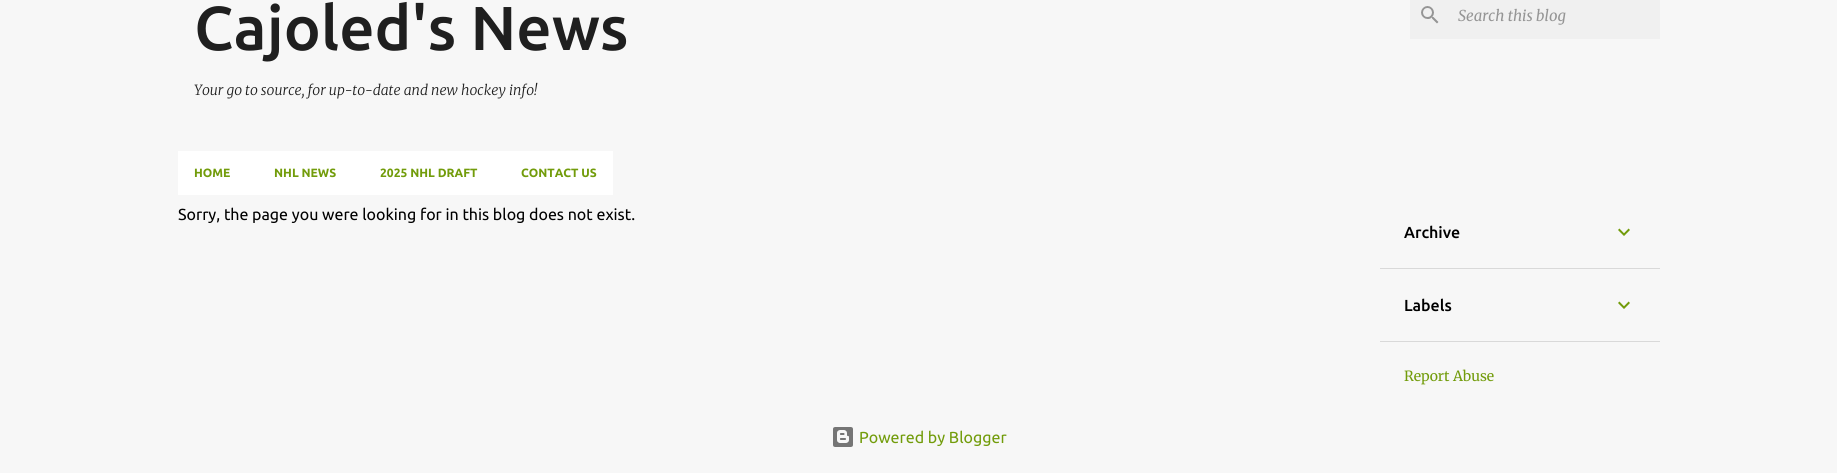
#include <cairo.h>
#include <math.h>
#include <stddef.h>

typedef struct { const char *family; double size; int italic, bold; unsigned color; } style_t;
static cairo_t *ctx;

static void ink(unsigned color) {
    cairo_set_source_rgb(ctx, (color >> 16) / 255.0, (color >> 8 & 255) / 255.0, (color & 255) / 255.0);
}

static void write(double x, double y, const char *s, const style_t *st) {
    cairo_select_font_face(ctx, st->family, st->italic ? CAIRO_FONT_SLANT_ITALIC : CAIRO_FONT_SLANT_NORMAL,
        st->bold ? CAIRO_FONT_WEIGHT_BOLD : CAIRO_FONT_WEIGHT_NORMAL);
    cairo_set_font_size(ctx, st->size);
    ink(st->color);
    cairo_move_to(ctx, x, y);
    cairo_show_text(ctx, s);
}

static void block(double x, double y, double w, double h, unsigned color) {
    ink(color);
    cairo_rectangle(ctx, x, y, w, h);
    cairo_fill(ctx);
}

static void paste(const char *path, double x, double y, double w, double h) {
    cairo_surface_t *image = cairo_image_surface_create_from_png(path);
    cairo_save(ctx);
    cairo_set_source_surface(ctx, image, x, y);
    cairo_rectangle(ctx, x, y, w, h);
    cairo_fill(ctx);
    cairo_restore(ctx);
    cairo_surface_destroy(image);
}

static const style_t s1 = {"Ubuntu Medium", 62, 0, 0, 0x1f1f1f};
static const style_t s2 = {"Merriweather Light", 14, 1, 0, 0x1f1f1f};
static const style_t s3 = {"Merriweather", 15, 1, 0, 0x959595};
static const style_t s4 = {"Ubuntu", 12, 0, 1, 0x729c0b};
static const style_t s5 = {"Ubuntu", 16, 0, 0, 0x000000};
static const style_t s6 = {"Ubuntu Medium", 16, 0, 0, 0x000000};
static const style_t s7 = {"Merriweather Light", 14, 0, 0, 0x729c0b};
static const style_t s8 = {"Ubuntu", 16, 0, 0, 0x729c0b};

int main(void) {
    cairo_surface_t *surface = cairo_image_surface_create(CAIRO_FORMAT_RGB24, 1837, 473);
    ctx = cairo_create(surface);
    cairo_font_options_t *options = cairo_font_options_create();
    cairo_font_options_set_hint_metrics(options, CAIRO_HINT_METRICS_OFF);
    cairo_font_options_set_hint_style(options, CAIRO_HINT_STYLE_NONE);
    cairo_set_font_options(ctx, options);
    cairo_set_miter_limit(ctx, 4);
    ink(0xf7f7f7);
    cairo_paint(ctx);
    write(194, 50, "Cajoled's News", &s1);
    write(194, 95, "Your go to source, for up-to-date and new hockey info!", &s2);
    block(1410, 0, 250, 39, 0xf0f0f0);
    paste("pic1.png", 1421, 6, 18, 18);
    write(1458, 21, "Search this blog", &s3);
    block(178, 151, 435, 44, 0xffffff);
    write(194, 177, "HOME", &s4);
    write(274, 177, "NHL NEWS", &s4);
    write(380, 177, "2025 NHL DRAFT", &s4);
    write(521, 177, "CONTACT US", &s4);
    write(178, 220, "Sorry, the page you were looking for in this blog does not exist.", &s5);
    write(1404, 238, "Archive", &s6);
    paste("pic2.png", 1618, 228, 12, 8);
    block(1380, 268, 280, 1, 0xd9d9d9);
    write(1404, 311, "Labels", &s6);
    paste("pic2.png", 1618, 301, 12, 8);
    block(1380, 341, 280, 1, 0xd9d9d9);
    write(1404, 381, "Report Abuse", &s7);
    paste("pic3.png", 833, 427, 20, 20);
    write(859, 443, "Powered by Blogger", &s8);
    cairo_surface_write_to_png(surface, "screenshot.png");
    cairo_font_options_destroy(options);
    cairo_destroy(ctx);
    cairo_surface_destroy(surface);
    return 0;
}
